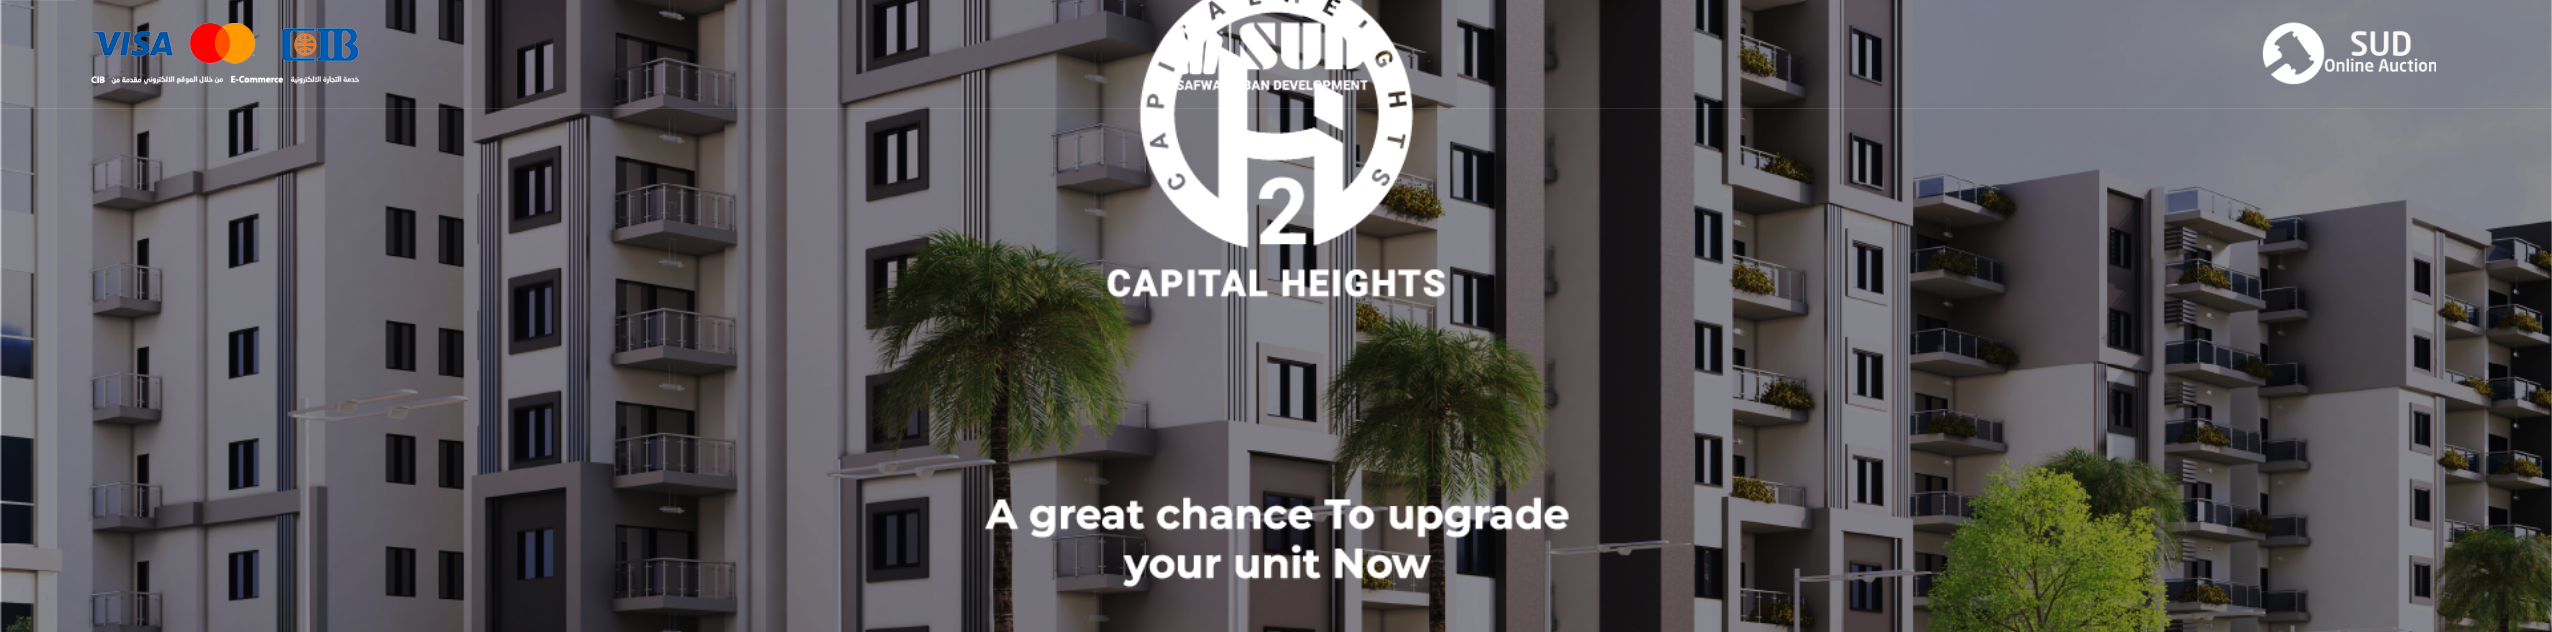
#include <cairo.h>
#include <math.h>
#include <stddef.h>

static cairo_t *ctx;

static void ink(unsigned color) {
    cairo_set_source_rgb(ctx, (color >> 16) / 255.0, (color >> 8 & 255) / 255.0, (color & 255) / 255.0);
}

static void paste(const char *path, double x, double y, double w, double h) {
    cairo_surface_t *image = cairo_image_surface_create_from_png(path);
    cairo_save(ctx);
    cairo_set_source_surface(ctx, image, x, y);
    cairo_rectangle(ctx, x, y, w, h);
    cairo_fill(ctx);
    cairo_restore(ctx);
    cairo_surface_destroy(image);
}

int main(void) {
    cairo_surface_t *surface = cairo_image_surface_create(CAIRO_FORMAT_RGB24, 2552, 632);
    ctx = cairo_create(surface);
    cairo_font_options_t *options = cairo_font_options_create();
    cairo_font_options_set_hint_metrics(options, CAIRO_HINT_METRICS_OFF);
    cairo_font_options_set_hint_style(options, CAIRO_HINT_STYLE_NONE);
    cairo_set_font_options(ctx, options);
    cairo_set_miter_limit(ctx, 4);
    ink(0xffffff);
    cairo_paint(ctx);
    paste("pic1.png", 0, 0, 2552, 632);
    cairo_set_source_rgba(ctx, 1, 1, 1, 0.1);
    cairo_rectangle(ctx, 0, 0, 75, 1);
    cairo_fill(ctx);
    cairo_rectangle(ctx, 0, 108, 2552, 1);
    cairo_fill(ctx);
    paste("pic2.png", 91, 23, 268, 62);
    paste("pic3.png", 1173, 22, 195, 69);
    paste("pic4.png", 2262, 22, 174, 63);
    cairo_surface_write_to_png(surface, "screenshot.png");
    cairo_font_options_destroy(options);
    cairo_destroy(ctx);
    cairo_surface_destroy(surface);
    return 0;
}
